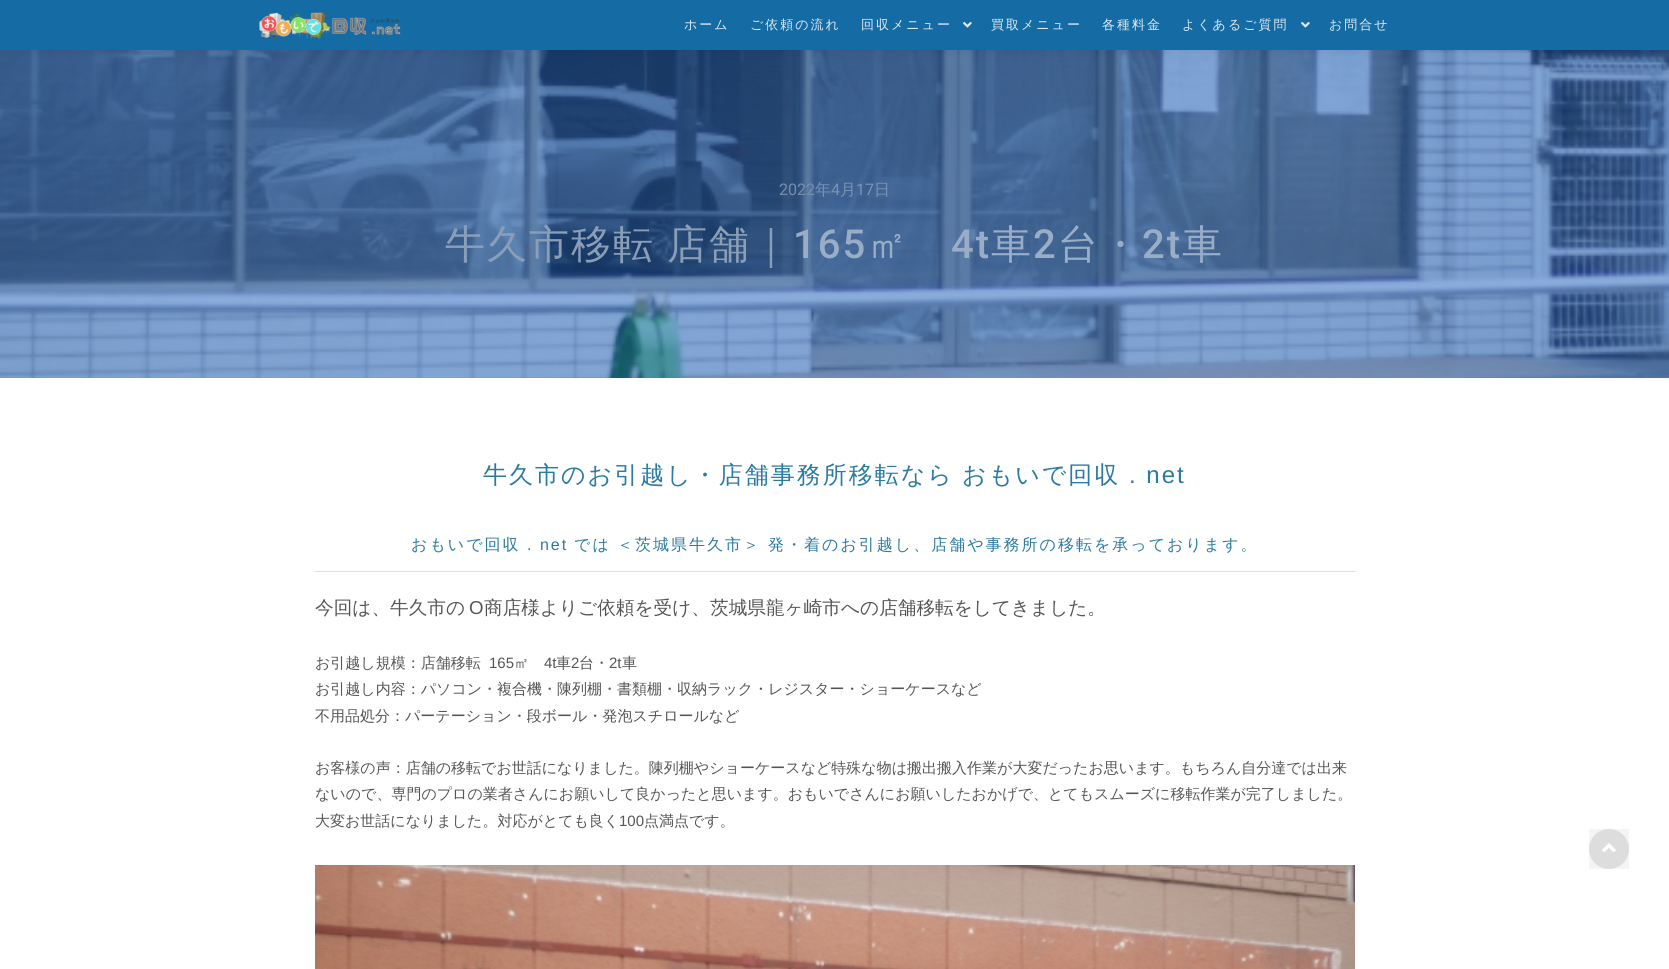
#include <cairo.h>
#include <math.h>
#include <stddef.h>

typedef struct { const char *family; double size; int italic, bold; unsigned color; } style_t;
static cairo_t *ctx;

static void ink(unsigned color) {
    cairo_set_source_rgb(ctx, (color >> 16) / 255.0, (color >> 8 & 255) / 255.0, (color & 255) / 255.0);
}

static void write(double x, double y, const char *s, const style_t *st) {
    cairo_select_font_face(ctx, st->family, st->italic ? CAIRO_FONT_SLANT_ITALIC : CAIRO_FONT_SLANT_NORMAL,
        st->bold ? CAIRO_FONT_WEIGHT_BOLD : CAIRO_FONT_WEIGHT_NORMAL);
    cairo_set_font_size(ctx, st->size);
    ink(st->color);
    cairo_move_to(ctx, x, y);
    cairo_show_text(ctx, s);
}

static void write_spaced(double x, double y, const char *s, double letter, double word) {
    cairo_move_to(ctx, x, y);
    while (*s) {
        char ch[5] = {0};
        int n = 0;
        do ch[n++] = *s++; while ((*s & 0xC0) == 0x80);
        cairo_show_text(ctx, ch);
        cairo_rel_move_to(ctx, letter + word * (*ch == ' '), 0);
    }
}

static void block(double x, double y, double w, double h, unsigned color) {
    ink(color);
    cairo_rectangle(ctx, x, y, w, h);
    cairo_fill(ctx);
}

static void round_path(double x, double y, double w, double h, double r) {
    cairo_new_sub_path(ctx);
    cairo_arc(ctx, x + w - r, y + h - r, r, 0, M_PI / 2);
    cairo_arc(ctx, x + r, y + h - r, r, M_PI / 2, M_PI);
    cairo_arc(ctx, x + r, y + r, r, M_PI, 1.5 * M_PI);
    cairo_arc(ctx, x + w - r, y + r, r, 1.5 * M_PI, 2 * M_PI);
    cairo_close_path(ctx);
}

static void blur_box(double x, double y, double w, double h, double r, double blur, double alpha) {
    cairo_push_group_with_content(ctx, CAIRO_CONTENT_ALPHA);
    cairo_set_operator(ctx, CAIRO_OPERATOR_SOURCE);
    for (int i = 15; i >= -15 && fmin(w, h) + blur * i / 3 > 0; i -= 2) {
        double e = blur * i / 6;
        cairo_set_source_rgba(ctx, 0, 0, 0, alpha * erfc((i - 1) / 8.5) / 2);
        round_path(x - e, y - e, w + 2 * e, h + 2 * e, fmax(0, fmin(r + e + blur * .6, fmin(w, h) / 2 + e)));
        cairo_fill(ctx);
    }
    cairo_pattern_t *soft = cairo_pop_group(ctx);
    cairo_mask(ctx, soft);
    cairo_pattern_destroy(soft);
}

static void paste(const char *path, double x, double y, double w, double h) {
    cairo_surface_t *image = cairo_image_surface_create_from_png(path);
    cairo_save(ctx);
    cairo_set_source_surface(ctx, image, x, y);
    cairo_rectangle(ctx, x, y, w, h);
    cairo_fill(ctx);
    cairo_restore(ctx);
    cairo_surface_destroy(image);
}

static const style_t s1 = {"Roboto", 16, 0, 0, 0x778dab};
static const style_t s2 = {"WenQuanYi Zen Hei Medium", 16, 0, 0, 0x7a93b3};
static const style_t s3 = {"Roboto", 16, 0, 0, 0x7a93b3};
static const style_t s4 = {"WenQuanYi Zen Hei Medium", 18.65, 0, 0, 0x555555};
static const style_t s5 = {"Liberation Sans", 18.65, 0, 0, 0x555555};
static const style_t s6 = {"WenQuanYi Zen Hei Medium", 15, 0, 0, 0x555555};
static const style_t s7 = {"Liberation Sans", 15, 0, 0, 0x555555};

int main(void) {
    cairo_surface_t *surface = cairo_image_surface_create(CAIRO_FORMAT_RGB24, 1669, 969);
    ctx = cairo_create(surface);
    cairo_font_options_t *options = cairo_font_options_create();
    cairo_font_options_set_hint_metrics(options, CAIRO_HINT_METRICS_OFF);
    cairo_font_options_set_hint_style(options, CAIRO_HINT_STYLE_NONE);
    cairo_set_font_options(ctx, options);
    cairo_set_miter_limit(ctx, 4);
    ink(0xffffff);
    cairo_paint(ctx);
    paste("pic3.png", 0, 50, 1669, 328);
    ink(0x000000);
    blur_box(0, 0, 1669, 50, 0, 6, 0.09);
    block(0, 0, 1669, 50, 0x156ca5);
    paste("pic1.png", 259, 12, 142, 27);
    cairo_select_font_face(ctx, "WenQuanYi Zen Hei Medium", CAIRO_FONT_SLANT_NORMAL, CAIRO_FONT_WEIGHT_NORMAL);
    cairo_set_font_size(ctx, 13);
    ink(0xdce9f2);
    write_spaced(684, 29, "ホーム", 2, 0);
    write_spaced(750, 29, "ご依頼の流れ", 2, 0);
    write_spaced(861, 29, "回収メニュー", 2, 0);
    paste("pic2.png", 963, 22, 9, 6);
    write_spaced(991, 29, "買取メニュー", 2, 0);
    write_spaced(1102, 29, "各種料金", 2, 0);
    write_spaced(1182, 29, "よくあるご質問", 2, 0);
    paste("pic2.png", 1301, 22, 9, 6);
    write_spaced(1329, 29, "お問合せ", 2, 0);
    write(779, 195, "2022", &s1);
    write(815, 195, "年", &s2);
    write(831, 195, "4", &s3);
    write(840, 195, "月", &s2);
    write(856, 195, "17", &s3);
    write(874, 195, "日", &s2);
    cairo_set_font_size(ctx, 40);
    ink(0x8b9eb7);
    write_spaced(445, 258, "牛久市移転 店舗｜", 2, -2);
    cairo_select_font_face(ctx, "Roboto Medium", CAIRO_FONT_SLANT_NORMAL, CAIRO_FONT_WEIGHT_NORMAL);
    ink(0x99adc6);
    write_spaced(793, 258, "165", 2, 0);
    cairo_select_font_face(ctx, "WenQuanYi Zen Hei Medium", CAIRO_FONT_SLANT_NORMAL, CAIRO_FONT_WEIGHT_NORMAL);
    write_spaced(867, 258, "㎡", 2, 0);
    cairo_select_font_face(ctx, "Roboto Medium", CAIRO_FONT_SLANT_NORMAL, CAIRO_FONT_WEIGHT_NORMAL);
    write_spaced(951, 258, "4t", 2, 0);
    cairo_select_font_face(ctx, "WenQuanYi Zen Hei Medium", CAIRO_FONT_SLANT_NORMAL, CAIRO_FONT_WEIGHT_NORMAL);
    write_spaced(991, 258, "車", 2, 0);
    cairo_select_font_face(ctx, "Roboto Medium", CAIRO_FONT_SLANT_NORMAL, CAIRO_FONT_WEIGHT_NORMAL);
    write_spaced(1033, 258, "2", 2, 0);
    cairo_select_font_face(ctx, "WenQuanYi Zen Hei Medium", CAIRO_FONT_SLANT_NORMAL, CAIRO_FONT_WEIGHT_NORMAL);
    write_spaced(1058, 258, "台・", 2, 0);
    cairo_select_font_face(ctx, "Roboto Medium", CAIRO_FONT_SLANT_NORMAL, CAIRO_FONT_WEIGHT_NORMAL);
    write_spaced(1142, 258, "2t", 2, 0);
    cairo_select_font_face(ctx, "WenQuanYi Zen Hei Medium", CAIRO_FONT_SLANT_NORMAL, CAIRO_FONT_WEIGHT_NORMAL);
    write_spaced(1182, 258, "車", 2, 0);
    cairo_set_font_size(ctx, 24);
    ink(0x2a7aa1);
    write_spaced(483, 483, "牛久市のお引越し・店舗事務所移転なら", 2, 0);
    write_spaced(962, 483, "おもいで回収", 2, 0);
    cairo_select_font_face(ctx, "Liberation Sans", CAIRO_FONT_SLANT_NORMAL, CAIRO_FONT_WEIGHT_NORMAL);
    write_spaced(1129, 483, ". net", 2, 0);
    cairo_select_font_face(ctx, "WenQuanYi Zen Hei Medium", CAIRO_FONT_SLANT_NORMAL, CAIRO_FONT_WEIGHT_NORMAL);
    cairo_set_font_size(ctx, 16);
    write_spaced(411, 550, "おもいで回収", 2, 0);
    cairo_select_font_face(ctx, "Liberation Sans", CAIRO_FONT_SLANT_NORMAL, CAIRO_FONT_WEIGHT_NORMAL);
    write_spaced(527, 550, ". net", 2, 0);
    cairo_select_font_face(ctx, "WenQuanYi Zen Hei Medium", CAIRO_FONT_SLANT_NORMAL, CAIRO_FONT_WEIGHT_NORMAL);
    write_spaced(574, 550, "では", 2, 0);
    write_spaced(617, 550, "＜茨城県牛久市＞", 2, 0);
    write_spaced(768, 550, "発・着のお引越し、店舗や事務所の移転を承っております。", 2, 0);
    block(315, 571, 1040, 1, 0xdfdfdf);
    write(315, 614, "今回は、牛久市の", &s4);
    write(469, 614, "O", &s5);
    write(484, 614, "商店様よりご依頼を受け、茨城県龍ヶ崎市への店舗移転をしてきました。", &s4);
    write(315, 668, "お引越し規模：店舗移転", &s6);
    write(489, 668, "165", &s7);
    write(514, 668, "㎡", &s6);
    write(544, 668, "4t", &s7);
    write(556, 668, "車", &s6);
    write(571, 668, "2", &s7);
    write(579, 668, "台・", &s6);
    write(609, 668, "2t", &s7);
    write(622, 668, "車", &s6);
    write(315, 694, "お引越し内容：パソコン・複合機・陳列棚・書類棚・収納ラック・レジスター・ショーケースなど", &s6);
    write(315, 721, "不用品処分：パーテーション・段ボール・発泡スチロールなど", &s6);
    write(315, 773, "お客様の声：店舗の移転でお世話になりました。陳列棚やショーケースなど特殊な物は搬出搬入作業が大変だったお思います。もちろん自分達では出来", &s6);
    write(315, 799, "ないので、専門のプロの業者さんにお願いして良かったと思います。おもいでさんにお願いしたおかげで、とてもスムーズに移転作業が完了しました。", &s6);
    write(315, 826, "大変お世話になりました。対応がとても良く", &s6);
    write(619, 826, "100", &s7);
    write(644, 826, "点満点です。", &s6);
    paste("pic4.png", 315, 865, 1040, 104);
    ink(0xe6e6e6);
    cairo_arc(ctx, 1609, 849, 20, 0, 2 * M_PI);
    cairo_fill(ctx);
    cairo_set_source_rgba(ctx, 0, 0, 0, 0.04);
    cairo_rectangle(ctx, 1589, 829, 40, 40);
    cairo_fill(ctx);
    paste("pic5.png", 1602, 843, 14, 9);
    cairo_surface_write_to_png(surface, "screenshot.png");
    cairo_font_options_destroy(options);
    cairo_destroy(ctx);
    cairo_surface_destroy(surface);
    return 0;
}
